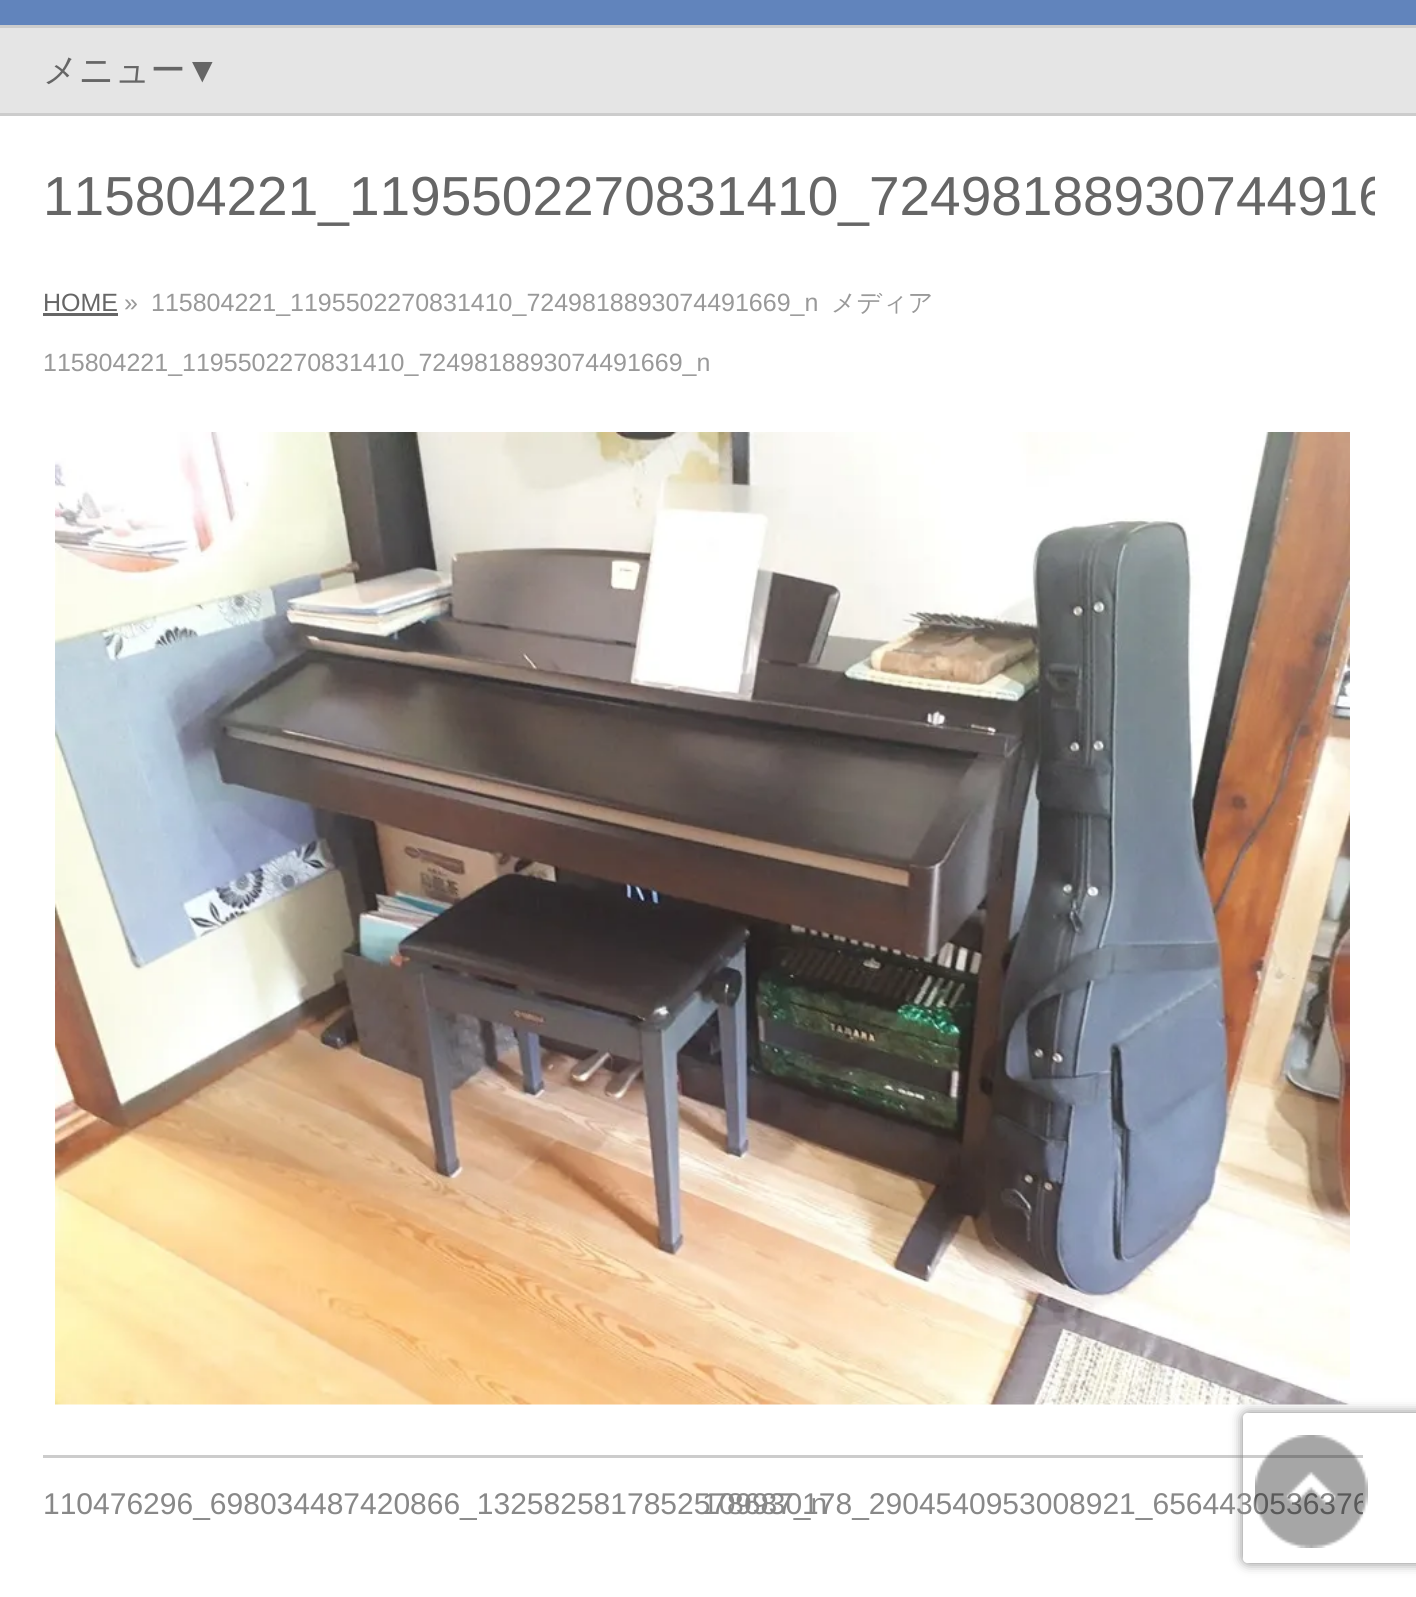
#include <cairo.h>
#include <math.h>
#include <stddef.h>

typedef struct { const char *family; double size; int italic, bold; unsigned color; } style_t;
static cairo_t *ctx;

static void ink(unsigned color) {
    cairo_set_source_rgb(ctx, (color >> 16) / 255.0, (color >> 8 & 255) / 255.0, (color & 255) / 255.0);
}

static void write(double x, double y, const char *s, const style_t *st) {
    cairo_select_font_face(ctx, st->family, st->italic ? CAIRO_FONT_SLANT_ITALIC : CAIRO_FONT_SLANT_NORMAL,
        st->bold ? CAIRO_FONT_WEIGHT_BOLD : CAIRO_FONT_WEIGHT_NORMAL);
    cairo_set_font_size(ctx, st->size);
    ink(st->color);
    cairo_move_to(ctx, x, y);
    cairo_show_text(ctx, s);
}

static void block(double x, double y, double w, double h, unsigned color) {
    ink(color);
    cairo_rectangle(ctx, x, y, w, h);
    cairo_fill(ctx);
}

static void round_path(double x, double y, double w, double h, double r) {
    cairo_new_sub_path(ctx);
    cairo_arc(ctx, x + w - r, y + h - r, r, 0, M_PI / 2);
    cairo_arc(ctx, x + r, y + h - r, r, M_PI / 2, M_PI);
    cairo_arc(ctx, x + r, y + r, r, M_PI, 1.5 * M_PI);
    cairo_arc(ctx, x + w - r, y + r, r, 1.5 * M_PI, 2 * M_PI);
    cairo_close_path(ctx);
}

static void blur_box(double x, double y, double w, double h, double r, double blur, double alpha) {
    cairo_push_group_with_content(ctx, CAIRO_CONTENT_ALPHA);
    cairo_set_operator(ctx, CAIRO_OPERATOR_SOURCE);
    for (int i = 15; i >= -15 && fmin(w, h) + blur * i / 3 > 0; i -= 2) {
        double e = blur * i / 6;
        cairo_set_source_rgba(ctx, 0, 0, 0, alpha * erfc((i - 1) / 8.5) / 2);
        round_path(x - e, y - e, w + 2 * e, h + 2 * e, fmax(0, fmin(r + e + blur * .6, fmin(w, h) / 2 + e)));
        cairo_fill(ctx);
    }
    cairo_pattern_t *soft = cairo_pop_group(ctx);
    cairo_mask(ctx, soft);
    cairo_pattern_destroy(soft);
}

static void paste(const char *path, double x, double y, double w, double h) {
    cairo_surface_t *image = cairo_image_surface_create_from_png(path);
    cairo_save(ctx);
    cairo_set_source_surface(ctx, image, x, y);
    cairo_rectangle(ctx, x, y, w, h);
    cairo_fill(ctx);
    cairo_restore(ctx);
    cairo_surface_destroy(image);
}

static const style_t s1 = {"WenQuanYi Zen Hei Medium", 35, 0, 0, 0x666666};
static const style_t s2 = {"Liberation Sans", 35, 0, 0, 0x666666};
static const style_t s3 = {"Liberation Sans", 55, 0, 0, 0x666666};
static const style_t s4 = {"Liberation Sans", 25, 0, 0, 0x666666};
static const style_t s5 = {"Liberation Sans", 25, 0, 0, 0x999999};
static const style_t s6 = {"WenQuanYi Zen Hei Medium", 25, 0, 0, 0x999999};
static const style_t s7 = {"Liberation Sans", 30, 0, 0, 0x888888};

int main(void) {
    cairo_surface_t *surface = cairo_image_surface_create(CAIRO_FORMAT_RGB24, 1416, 1597);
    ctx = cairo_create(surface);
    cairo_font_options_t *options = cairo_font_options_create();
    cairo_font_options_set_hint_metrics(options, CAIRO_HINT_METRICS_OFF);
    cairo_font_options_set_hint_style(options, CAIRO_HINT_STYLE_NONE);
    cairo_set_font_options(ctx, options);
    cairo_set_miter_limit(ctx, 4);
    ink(0xffffff);
    cairo_paint(ctx);
    block(0, 0, 1416, 25, 0x6184bc);
    block(0, 25, 1416, 3, 0xcccccc);
    block(0, 113, 1416, 3, 0xcccccc);
    block(0, 28, 1416, 85, 0xe5e5e5);
    write(43, 82, "メニュー", &s1);
    write(185, 82, "▼", &s2);
    cairo_save(ctx);
    cairo_rectangle(ctx, 43, 115, 1332, 158);
    cairo_clip(ctx);
    write(43, 215, "115804221_1195502270831410_72498188930744916", &s3);
    cairo_restore(ctx);
    write(43, 311, "HOME", &s4);
    block(43, 313, 75, 3, 0x666666);
    write(124, 311, "»", &s5);
    write(151, 311, "115804221_1195502270831410_7249818893074491669_n", &s5);
    write(831, 311, "メディア", &s6);
    write(43, 371, "115804221_1195502270831410_7249818893074491669_n", &s5);
    block(43, 1455, 1320, 3, 0xcccccc);
    write(43, 1514, "110476296_698034487420866_1325825817852578687_n", &s7);
    cairo_save(ctx);
    cairo_rectangle(ctx, 43, 1458, 1320, 107);
    cairo_clip(ctx);
    write(702, 1514, "109930178_2904540953008921_6564430536376", &s7);
    cairo_restore(ctx);
    paste("pic2.png", 55, 432, 1295, 973);
    cairo_save(ctx);
    cairo_set_fill_rule(ctx, CAIRO_FILL_RULE_EVEN_ODD);
    cairo_new_path(ctx);
    cairo_move_to(ctx, 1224, 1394);
    cairo_line_to(ctx, 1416, 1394);
    cairo_line_to(ctx, 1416, 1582);
    cairo_line_to(ctx, 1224, 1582);
    cairo_close_path(ctx);
    cairo_move_to(ctx, 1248, 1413);
    cairo_line_to(ctx, 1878, 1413);
    cairo_curve_to(ctx, 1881, 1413, 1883, 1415, 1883, 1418);
    cairo_line_to(ctx, 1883, 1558);
    cairo_curve_to(ctx, 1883, 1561, 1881, 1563, 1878, 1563);
    cairo_line_to(ctx, 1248, 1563);
    cairo_curve_to(ctx, 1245, 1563, 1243, 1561, 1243, 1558);
    cairo_line_to(ctx, 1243, 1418);
    cairo_curve_to(ctx, 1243, 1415, 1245, 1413, 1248, 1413);
    cairo_close_path(ctx);
    cairo_clip(ctx);
    ink(0x808080);
    blur_box(1243, 1413, 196, 150, 5, 6, 1);
    cairo_restore(ctx);
    paste("pic1.png", 1255, 1435, 113, 113);
    cairo_surface_write_to_png(surface, "screenshot.png");
    cairo_font_options_destroy(options);
    cairo_destroy(ctx);
    cairo_surface_destroy(surface);
    return 0;
}
